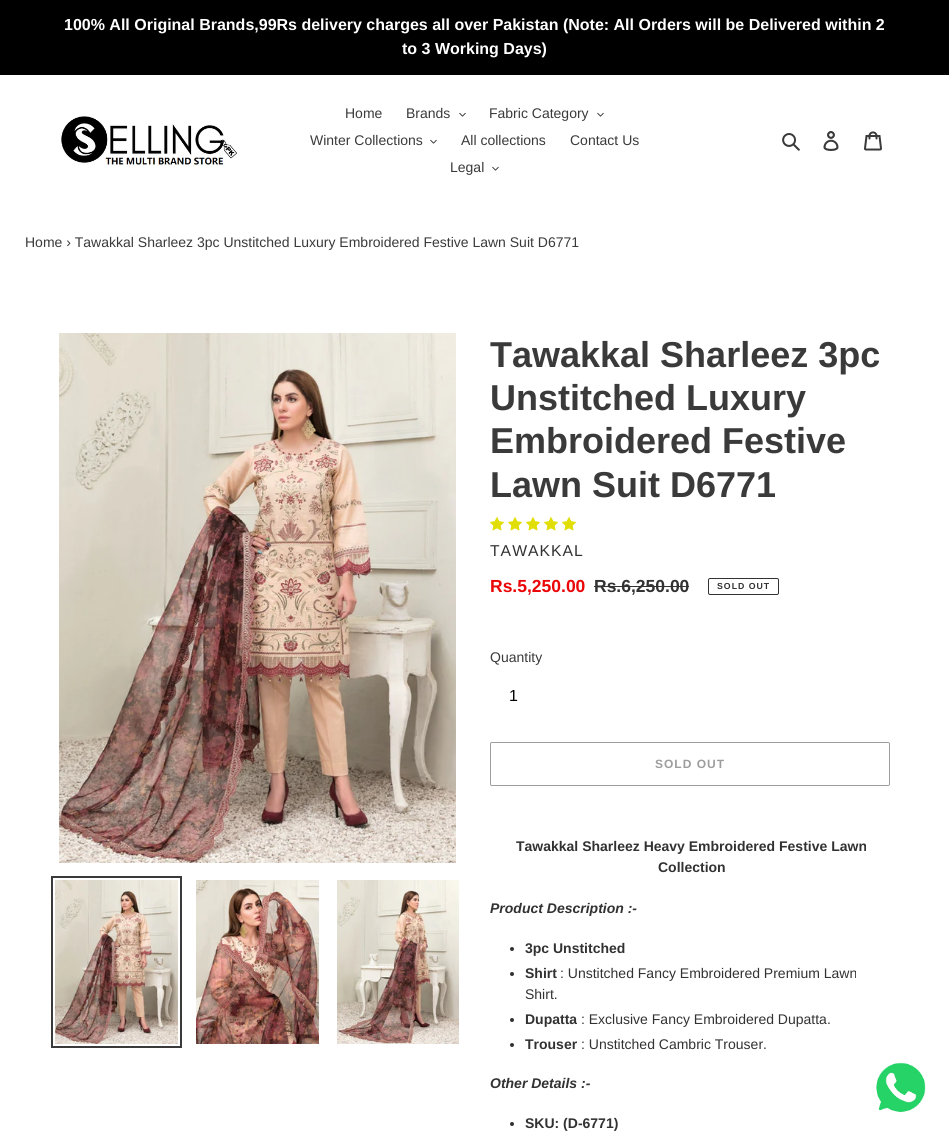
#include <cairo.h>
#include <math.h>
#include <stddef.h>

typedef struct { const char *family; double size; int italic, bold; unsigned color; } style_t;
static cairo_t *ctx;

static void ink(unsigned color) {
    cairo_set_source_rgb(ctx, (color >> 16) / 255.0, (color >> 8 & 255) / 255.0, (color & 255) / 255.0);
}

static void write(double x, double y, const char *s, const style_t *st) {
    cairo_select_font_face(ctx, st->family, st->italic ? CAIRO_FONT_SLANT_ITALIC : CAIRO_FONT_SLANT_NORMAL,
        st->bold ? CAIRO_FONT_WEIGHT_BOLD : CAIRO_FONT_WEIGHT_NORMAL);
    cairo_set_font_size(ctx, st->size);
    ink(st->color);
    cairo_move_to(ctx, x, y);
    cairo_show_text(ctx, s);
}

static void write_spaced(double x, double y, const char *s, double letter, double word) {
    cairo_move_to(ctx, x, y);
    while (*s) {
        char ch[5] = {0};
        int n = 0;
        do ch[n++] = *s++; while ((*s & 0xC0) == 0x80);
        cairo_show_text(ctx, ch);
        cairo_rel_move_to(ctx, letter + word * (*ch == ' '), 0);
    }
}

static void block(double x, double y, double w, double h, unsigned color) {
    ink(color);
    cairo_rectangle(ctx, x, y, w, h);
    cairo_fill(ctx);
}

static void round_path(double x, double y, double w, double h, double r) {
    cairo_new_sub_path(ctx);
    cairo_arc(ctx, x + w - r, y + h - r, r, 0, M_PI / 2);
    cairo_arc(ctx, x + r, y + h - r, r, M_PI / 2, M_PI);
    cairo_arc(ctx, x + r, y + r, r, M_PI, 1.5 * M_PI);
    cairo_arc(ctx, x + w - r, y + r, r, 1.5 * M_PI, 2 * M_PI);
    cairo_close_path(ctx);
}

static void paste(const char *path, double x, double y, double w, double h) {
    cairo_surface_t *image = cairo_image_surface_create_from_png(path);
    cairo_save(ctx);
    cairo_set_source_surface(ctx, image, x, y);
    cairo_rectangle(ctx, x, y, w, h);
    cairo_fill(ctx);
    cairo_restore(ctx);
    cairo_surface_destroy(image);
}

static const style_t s1 = {"Liberation Sans", 16, 0, 1, 0xffffff};
static const style_t s2 = {"Liberation Sans", 14, 0, 0, 0x3a3a3a};
static const style_t s3 = {"Liberation Sans", 36, 0, 1, 0x3a3a3a};
static const style_t s4 = {"Liberation Sans", 17.5, 0, 1, 0xea0606};
static const style_t s5 = {"Liberation Sans", 17.5, 0, 1, 0x333232};
static const style_t s6 = {"Liberation Sans", 16, 0, 0, 0x000000};
static const style_t s7 = {"Liberation Sans", 14, 0, 1, 0x333232};
static const style_t s8 = {"Liberation Sans", 14, 1, 1, 0x333232};
static const style_t s9 = {"Liberation Sans", 14, 0, 0, 0x333232};

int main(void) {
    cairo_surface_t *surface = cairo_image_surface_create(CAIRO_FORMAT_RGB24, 949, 1138);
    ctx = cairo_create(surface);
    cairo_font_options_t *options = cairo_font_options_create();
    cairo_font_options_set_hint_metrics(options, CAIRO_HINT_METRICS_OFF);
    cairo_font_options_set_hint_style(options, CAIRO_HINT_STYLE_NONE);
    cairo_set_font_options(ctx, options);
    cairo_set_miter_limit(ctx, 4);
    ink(0xffffff);
    cairo_paint(ctx);
    block(0, 0, 949, 75, 0x000000);
    write(64, 30, "100% All Original Brands,99Rs delivery charges all over Pakistan (Note: All Orders will be Delivered within 2", &s1);
    write(402, 54, "to 3 Working Days)", &s1);
    paste("pic1.png", 61, 116, 176, 51);
    write(345, 118, "Home", &s2);
    write(406, 118, "Brands", &s2);
    paste("pic2.png", 459, 112, 7, 5);
    write(489, 118, "Fabric Category", &s2);
    paste("pic2.png", 597, 112, 7, 5);
    write(310, 145, "Winter Collections", &s2);
    paste("pic2.png", 430, 139, 7, 5);
    write(461, 145, "All collections", &s2);
    write(570, 145, "Contact Us", &s2);
    write(450, 172, "Legal", &s2);
    paste("pic2.png", 492, 166, 7, 5);
    paste("pic3.png", 782, 133, 18, 18);
    paste("pic4.png", 823, 131, 16, 20);
    paste("pic5.png", 864, 131, 18, 20);
    write(25, 247, "Home › Tawakkal Sharleez 3pc Unstitched Luxury Embroidered Festive Lawn Suit D6771", &s2);
    paste("pic6.png", 59, 333, 397, 530);
    cairo_rectangle(ctx, 52, 877, 129, 170);
    cairo_stroke(ctx);
    paste("pic7.png", 55, 880, 123, 164);
    paste("pic8.png", 196, 880, 123, 164);
    paste("pic9.png", 337, 880, 122, 164);
    write(490, 367, "Tawakkal Sharleez 3pc", &s3);
    write(490, 410, "Unstitched Luxury", &s3);
    write(490, 453, "Embroidered Festive", &s3);
    write(490, 497, "Lawn Suit D6771", &s3);
    paste("pic10.png", 490, 517, 14, 14);
    paste("pic10.png", 508, 517, 14, 14);
    paste("pic10.png", 526, 517, 14, 14);
    paste("pic10.png", 544, 517, 14, 14);
    paste("pic10.png", 562, 517, 14, 14);
    cairo_select_font_face(ctx, "Liberation Sans", CAIRO_FONT_SLANT_NORMAL, CAIRO_FONT_WEIGHT_NORMAL);
    cairo_set_font_size(ctx, 15.75);
    ink(0x333232);
    write_spaced(490, 556, "TAWAKKAL", 1, 0);
    write(490, 592, "Rs.5,250.00", &s4);
    write(594, 592, "Rs.6,250.00", &s5);
    block(594, 586, 95, 1, 0x333232);
    round_path(708.5, 578.5, 70, 16, 1.5);
    cairo_set_line_width(ctx, 1);
    cairo_stroke(ctx);
    cairo_set_font_size(ctx, 8.75);
    write_spaced(717, 589, "SOLD OUT", 1, 0);
    write(490, 662, "Quantity", &s2);
    write(509, 701, "1", &s6);
    round_path(490.5, 742.5, 399, 43, 1.5);
    ink(0x9d9d9d);
    cairo_stroke(ctx);
    cairo_select_font_face(ctx, "Liberation Sans", CAIRO_FONT_SLANT_NORMAL, CAIRO_FONT_WEIGHT_BOLD);
    cairo_set_font_size(ctx, 12);
    write_spaced(655, 768, "SOLD OUT", 1, 0);
    write(516, 851, "Tawakkal Sharleez Heavy Embroidered Festive Lawn", &s7);
    write(658, 872, "Collection", &s7);
    write(490, 913, "Product Description :-", &s8);
    cairo_new_path(ctx);
    cairo_arc(ctx, 512, 949, 2, 0, 2 * M_PI);
    cairo_fill(ctx);
    write(525, 953, "3pc Unstitched", &s7);
    cairo_new_path(ctx);
    cairo_arc(ctx, 512, 974, 2, 0, 2 * M_PI);
    cairo_fill(ctx);
    write(525, 978, "Shirt", &s7);
    write(560, 978, ": Unstitched Fancy Embroidered Premium Lawn", &s9);
    write(525, 999, "Shirt.", &s9);
    cairo_new_path(ctx);
    cairo_arc(ctx, 512, 1020, 2, 0, 2 * M_PI);
    cairo_fill(ctx);
    write(525, 1024, "Dupatta", &s7);
    write(581, 1024, ": Exclusive Fancy Embroidered Dupatta.", &s9);
    cairo_new_path(ctx);
    cairo_arc(ctx, 512, 1045, 2, 0, 2 * M_PI);
    cairo_fill(ctx);
    write(525, 1049, "Trouser", &s7);
    write(581, 1049, ": Unstitched Cambric Trouser.", &s9);
    write(490, 1088, "Other Details :-", &s8);
    cairo_new_path(ctx);
    cairo_arc(ctx, 512, 1124, 2, 0, 2 * M_PI);
    cairo_fill(ctx);
    write(525, 1128, "SKU: (D-6771)", &s7);
    paste("pic11.png", 876, 1062, 50, 50);
    cairo_surface_write_to_png(surface, "screenshot.png");
    cairo_font_options_destroy(options);
    cairo_destroy(ctx);
    cairo_surface_destroy(surface);
    return 0;
}
